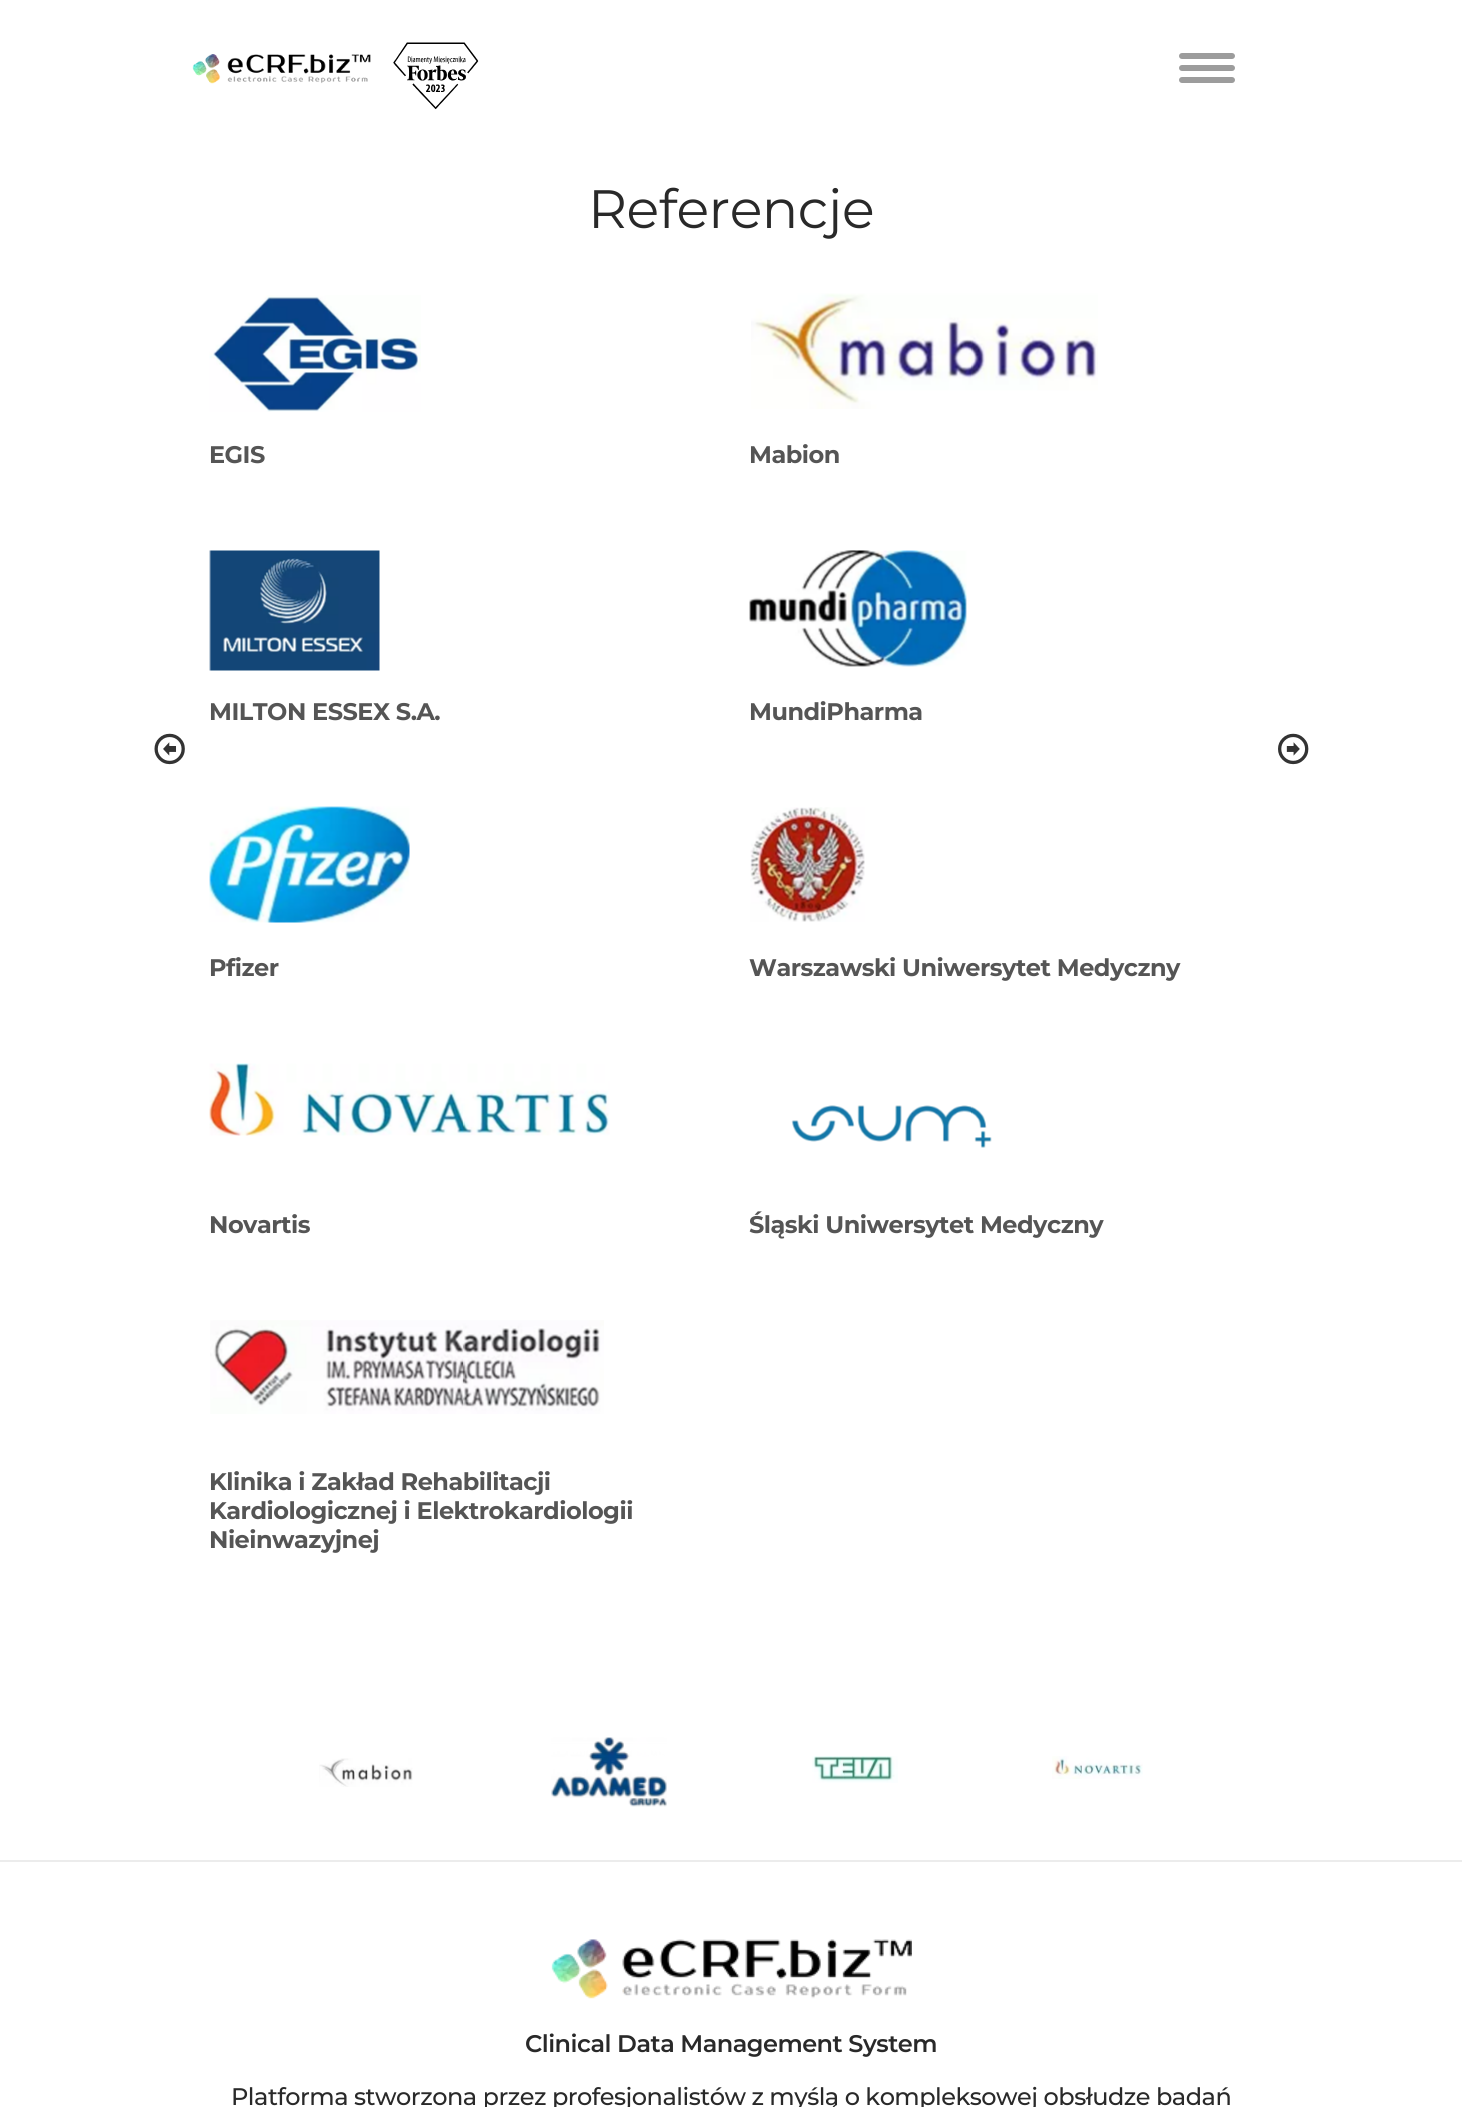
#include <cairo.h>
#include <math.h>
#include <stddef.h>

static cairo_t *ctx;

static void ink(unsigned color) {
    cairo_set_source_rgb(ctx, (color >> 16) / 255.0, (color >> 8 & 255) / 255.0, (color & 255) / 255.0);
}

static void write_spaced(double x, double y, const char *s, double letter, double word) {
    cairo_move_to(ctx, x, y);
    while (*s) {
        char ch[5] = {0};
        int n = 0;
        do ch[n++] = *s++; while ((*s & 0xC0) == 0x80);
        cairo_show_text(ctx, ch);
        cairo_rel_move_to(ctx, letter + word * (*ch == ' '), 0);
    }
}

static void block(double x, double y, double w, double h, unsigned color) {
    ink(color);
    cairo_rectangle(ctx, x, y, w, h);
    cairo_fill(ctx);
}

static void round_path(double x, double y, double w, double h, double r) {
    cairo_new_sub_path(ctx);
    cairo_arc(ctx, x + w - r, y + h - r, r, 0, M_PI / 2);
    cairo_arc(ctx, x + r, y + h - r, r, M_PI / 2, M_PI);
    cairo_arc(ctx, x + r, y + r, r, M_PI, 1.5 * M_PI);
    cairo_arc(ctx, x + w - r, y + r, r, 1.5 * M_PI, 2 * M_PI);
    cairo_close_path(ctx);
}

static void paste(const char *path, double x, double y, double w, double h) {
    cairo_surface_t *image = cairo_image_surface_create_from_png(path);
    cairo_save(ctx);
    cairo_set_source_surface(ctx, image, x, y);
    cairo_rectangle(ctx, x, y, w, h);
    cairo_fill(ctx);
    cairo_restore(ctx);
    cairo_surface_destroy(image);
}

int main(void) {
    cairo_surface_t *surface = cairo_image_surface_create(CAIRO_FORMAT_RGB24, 1462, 2107);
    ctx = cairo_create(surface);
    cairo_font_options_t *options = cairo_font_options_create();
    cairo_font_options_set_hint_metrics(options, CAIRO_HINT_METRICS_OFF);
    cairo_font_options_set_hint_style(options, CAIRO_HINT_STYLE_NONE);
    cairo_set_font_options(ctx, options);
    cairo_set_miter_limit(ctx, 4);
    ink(0xffffff);
    cairo_paint(ctx);
    paste("pic1.png", 192, 54, 179, 30);
    paste("pic2.png", 393, 42, 86, 68);
    ink(0x9c9c9c);
    round_path(1179, 53, 56, 6, 3);
    cairo_fill(ctx);
    round_path(1179, 65, 56, 6, 3);
    cairo_fill(ctx);
    round_path(1179, 77, 56, 6, 3);
    cairo_fill(ctx);
    cairo_select_font_face(ctx, "Montserrat", CAIRO_FONT_SLANT_NORMAL, CAIRO_FONT_WEIGHT_NORMAL);
    cairo_set_font_size(ctx, 54);
    ink(0x292929);
    write_spaced(588, 228, "Referencje", -0.5, 0);
    paste("pic3.png", 154, 733, 31, 32);
    paste("pic4.png", 209, 295, 212, 117);
    cairo_select_font_face(ctx, "Montserrat", CAIRO_FONT_SLANT_NORMAL, CAIRO_FONT_WEIGHT_BOLD);
    cairo_set_font_size(ctx, 24);
    ink(0x555555);
    write_spaced(209, 463, "EGIS", -0.5, 0);
    paste("pic5.png", 751, 293, 347, 116);
    write_spaced(749, 463, "Mabion", -0.5, 0);
    paste("pic6.png", 209, 550, 171, 121);
    write_spaced(209, 720, "MILTON ESSEX S.A.", -0.5, 0);
    paste("pic7.png", 749, 550, 218, 117);
    write_spaced(749, 720, "MundiPharma", -0.5, 0);
    paste("pic8.png", 209, 806, 201, 117);
    write_spaced(209, 976, "Pfizer", -0.5, 0);
    paste("pic9.png", 750, 807, 115, 115);
    write_spaced(749, 976, "Warszawski Uniwersytet Medyczny", -0.5, 0);
    paste("pic10.png", 209, 1063, 401, 73);
    write_spaced(209, 1233, "Novartis", -0.5, 0);
    paste("pic11.png", 791, 1105, 201, 43);
    write_spaced(749, 1233, "Śląski Uniwersytet Medyczny", -0.5, 0);
    paste("pic12.png", 210, 1320, 394, 94);
    write_spaced(209, 1490, "Klinika i Zakład Rehabilitacji", -0.5, 0);
    write_spaced(209, 1519, "Kardiologicznej i Elektrokardiologii", -0.5, 0);
    write_spaced(209, 1548, "Nieinwazyjnej", -0.5, 0);
    paste("pic13.png", 1278, 733, 31, 32);
    paste("pic14.png", 319, 1758, 94, 29);
    paste("pic15.png", 551, 1737, 116, 70);
    paste("pic16.png", 812, 1756, 86, 27);
    paste("pic17.png", 1052, 1756, 91, 23);
    block(0, 1860, 1462, 2, 0xececec);
    paste("pic18.png", 551, 1939, 361, 60);
    cairo_select_font_face(ctx, "Montserrat SemiBold", CAIRO_FONT_SLANT_NORMAL, CAIRO_FONT_WEIGHT_NORMAL);
    ink(0x292929);
    write_spaced(525, 2052, "Clinical Data Management System", -0.5, 0);
    cairo_select_font_face(ctx, "Montserrat Medium", CAIRO_FONT_SLANT_NORMAL, CAIRO_FONT_WEIGHT_NORMAL);
    write_spaced(231, 2105, "Platforma stworzona przez profesjonalistów z myślą o kompleksowej obsłudze badań", -0.5, 0);
    cairo_surface_write_to_png(surface, "screenshot.png");
    cairo_font_options_destroy(options);
    cairo_destroy(ctx);
    cairo_surface_destroy(surface);
    return 0;
}
